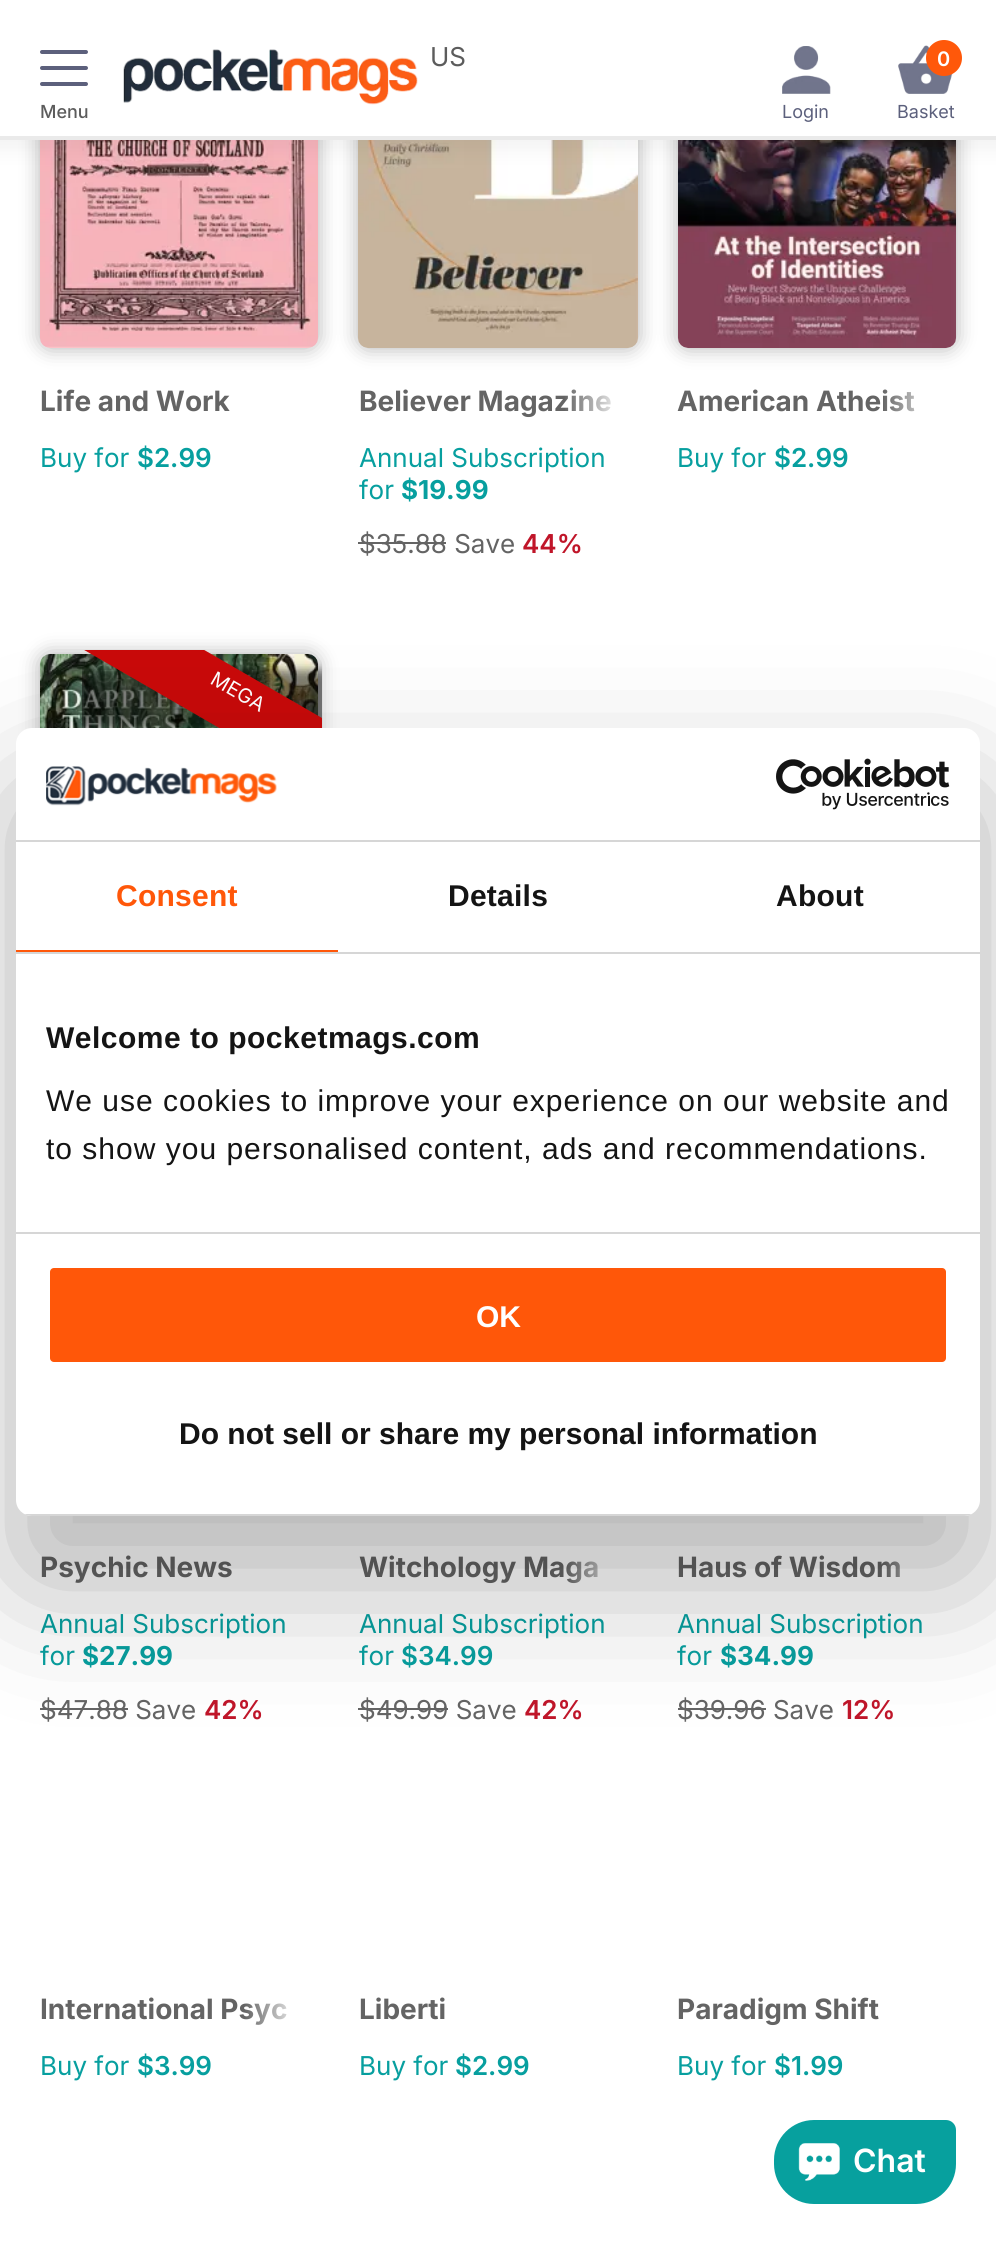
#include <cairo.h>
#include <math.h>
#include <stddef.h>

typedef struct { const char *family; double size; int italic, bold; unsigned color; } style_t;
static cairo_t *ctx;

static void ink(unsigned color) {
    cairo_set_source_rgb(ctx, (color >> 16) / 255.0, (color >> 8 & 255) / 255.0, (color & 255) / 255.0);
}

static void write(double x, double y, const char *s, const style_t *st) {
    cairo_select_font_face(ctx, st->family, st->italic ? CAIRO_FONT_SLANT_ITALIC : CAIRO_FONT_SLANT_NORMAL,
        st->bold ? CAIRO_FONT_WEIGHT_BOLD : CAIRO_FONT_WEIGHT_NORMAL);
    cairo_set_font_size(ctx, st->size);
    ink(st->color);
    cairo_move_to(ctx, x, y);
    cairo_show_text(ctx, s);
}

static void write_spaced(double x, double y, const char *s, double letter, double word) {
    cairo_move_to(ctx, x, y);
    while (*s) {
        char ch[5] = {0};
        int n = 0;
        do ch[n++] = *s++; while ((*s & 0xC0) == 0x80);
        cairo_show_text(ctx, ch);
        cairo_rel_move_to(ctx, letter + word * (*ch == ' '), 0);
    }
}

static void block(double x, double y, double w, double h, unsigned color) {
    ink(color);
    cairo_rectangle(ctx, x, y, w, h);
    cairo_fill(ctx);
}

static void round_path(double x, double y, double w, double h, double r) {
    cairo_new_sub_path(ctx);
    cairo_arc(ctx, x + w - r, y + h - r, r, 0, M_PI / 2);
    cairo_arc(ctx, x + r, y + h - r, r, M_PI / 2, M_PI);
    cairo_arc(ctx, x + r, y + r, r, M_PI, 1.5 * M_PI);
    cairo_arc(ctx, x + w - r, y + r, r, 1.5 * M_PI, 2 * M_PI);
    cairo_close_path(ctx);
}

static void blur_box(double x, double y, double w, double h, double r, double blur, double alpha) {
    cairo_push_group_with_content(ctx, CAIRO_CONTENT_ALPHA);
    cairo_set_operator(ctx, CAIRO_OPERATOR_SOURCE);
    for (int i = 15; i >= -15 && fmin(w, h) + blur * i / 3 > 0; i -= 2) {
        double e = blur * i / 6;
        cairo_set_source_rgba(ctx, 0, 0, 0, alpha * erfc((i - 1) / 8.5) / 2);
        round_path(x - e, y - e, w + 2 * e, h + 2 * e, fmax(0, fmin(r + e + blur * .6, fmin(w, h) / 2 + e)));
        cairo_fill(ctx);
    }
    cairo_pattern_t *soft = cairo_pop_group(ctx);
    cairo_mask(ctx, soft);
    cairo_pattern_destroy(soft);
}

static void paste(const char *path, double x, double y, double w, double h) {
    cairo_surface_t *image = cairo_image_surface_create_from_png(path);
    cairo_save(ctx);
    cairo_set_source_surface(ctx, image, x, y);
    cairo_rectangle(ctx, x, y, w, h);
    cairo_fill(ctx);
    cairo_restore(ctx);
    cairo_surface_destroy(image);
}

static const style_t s1 = {"Inter Medium", 18, 0, 0, 0x5c5c5c};
static const style_t s2 = {"Inter", 26, 0, 0, 0x5c5c5c};
static const style_t s3 = {"Inter", 18, 0, 0, 0x5c607c};
static const style_t s4 = {"Inter SemiBold", 20, 0, 0, 0xffffff};
static const style_t s5 = {"Inter", 28, 0, 1, 0x646464};
static const style_t s6 = {"Inter", 26, 0, 0, 0x079f9f};
static const style_t s7 = {"Inter SemiBold", 26, 0, 0, 0x079f9f};
static const style_t s8 = {"Inter", 26, 0, 1, 0x079f9f};
static const style_t s9 = {"Inter", 26, 0, 0, 0x646464};
static const style_t s10 = {"Inter SemiBold", 26, 0, 0, 0xc01529};
static const style_t s11 = {"Inter", 20, 0, 0, 0xffffff};
static const style_t s12 = {"Inter SemiBold", 32, 0, 0, 0xffffff};
static const style_t s13 = {"Liberation Sans", 30, 0, 1, 0xffffff};
static const style_t s14 = {"Liberation Sans", 30, 0, 1, 0x141414};

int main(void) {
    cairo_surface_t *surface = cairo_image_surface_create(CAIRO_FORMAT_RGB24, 996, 2244);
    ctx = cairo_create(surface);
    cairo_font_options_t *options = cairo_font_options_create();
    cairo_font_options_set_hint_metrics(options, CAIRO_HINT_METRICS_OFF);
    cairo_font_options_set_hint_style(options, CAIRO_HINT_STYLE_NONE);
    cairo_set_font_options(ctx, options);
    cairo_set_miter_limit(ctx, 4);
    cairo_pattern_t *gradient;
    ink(0xffffff);
    cairo_paint(ctx);
    ink(0x000000);
    blur_box(40, -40, 278, 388, 10, 10, 0.3);
    paste("pic4.png", 40, 140, 278, 208);
    blur_box(358, -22, 280, 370, 10, 10, 0.3);
    paste("pic5.png", 358, 140, 280, 208);
    blur_box(678, -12, 278, 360, 10, 10, 0.3);
    paste("pic6.png", 678, 140, 278, 208);
    blur_box(-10, -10, 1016, 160, 0, 10, 0.05);
    block(0, 0, 996, 136, 0xffffff);
    block(0, 136, 996, 4, 0xeaeaea);
    ink(0x5c607c);
    round_path(40, 50, 48, 4, 2);
    cairo_fill(ctx);
    round_path(40, 66, 48, 4, 2);
    cairo_fill(ctx);
    round_path(40, 82, 48, 4, 2);
    cairo_fill(ctx);
    write(40, 118, "Menu", &s1);
    paste("pic1.png", 123, 49, 295, 56);
    write(430, 66, "US", &s2);
    paste("pic2.png", 782, 46, 49, 48);
    write(782, 118, "Login", &s3);
    paste("pic3.png", 898, 45, 55, 49);
    ink(0xff580a);
    cairo_arc(ctx, 944, 58, 18, 0, 2 * M_PI);
    cairo_fill(ctx);
    write(937, 66, "0", &s4);
    write(897, 118, "Basket", &s3);
    write(40, 411, "Life and Work", &s5);
    write(40, 467, "Buy for", &s6);
    write(137, 467, "$2.99", &s7);
    write(359, 411, "Believer Magazine", &s5);
    gradient = cairo_pattern_create_linear(624, 399, 564, 399);
    cairo_pattern_add_color_stop_rgba(gradient, 0, 1, 1, 1, 1);
    cairo_pattern_add_color_stop_rgba(gradient, 1, 1, 1, 1, 0);
    cairo_set_source(ctx, gradient);
    cairo_pattern_destroy(gradient);
    cairo_rectangle(ctx, 565, 389, 46, 23);
    cairo_fill(ctx);
    write(359, 467, "Annual Subscription", &s6);
    write(359, 499, "for", &s6);
    write(401, 499, "$19.99", &s8);
    write(359, 553, "$35.88 Save", &s9);
    block(358, 542, 88, 2, 0x646464);
    write(522, 553, "44%", &s10);
    write(677, 411, "American Atheist", &s5);
    gradient = cairo_pattern_create_linear(942, 399, 882, 399);
    cairo_pattern_add_color_stop_rgba(gradient, 0, 1, 1, 1, 1);
    cairo_pattern_add_color_stop_rgba(gradient, 1, 1, 1, 1, 0);
    cairo_set_source(ctx, gradient);
    cairo_pattern_destroy(gradient);
    cairo_rectangle(ctx, 883, 389, 32, 23);
    cairo_fill(ctx);
    write(677, 467, "Buy for", &s6);
    write(774, 467, "$2.99", &s7);
    ink(0x000000);
    blur_box(40, 654, 278, 418, 10, 10, 0.3);
    paste("pic7.png", 40, 654, 278, 74);
    cairo_save(ctx);
    cairo_rectangle(ctx, 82, 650, 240, 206);
    cairo_clip(ctx);
    blur_box(42, 670, 380, 60, 0, 5, 0.5);
    cairo_restore(ctx);
    cairo_save(ctx);
    cairo_rectangle(ctx, 82, 650, 240, 206);
    cairo_clip(ctx);
    ink(0xc90909);
    cairo_new_path(ctx);
    cairo_move_to(ctx, 83, 580);
    cairo_line_to(ctx, 412, 770);
    cairo_line_to(ctx, 382, 822);
    cairo_line_to(ctx, 53, 632);
    cairo_close_path(ctx);
    cairo_fill(ctx);
    cairo_restore(ctx);
    cairo_save(ctx);
    cairo_translate(ctx, 209, 683);
    cairo_rotate(ctx, 30 * M_PI / 180);
    write(0, 0, "MEGA", &s11);
    cairo_restore(ctx);
    write(40, 1577, "Psychic News", &s5);
    write(40, 1633, "Annual Subscription", &s6);
    write(40, 1665, "for", &s6);
    write(82, 1665, "$27.99", &s8);
    write(40, 1719, "$47.88 Save", &s9);
    block(40, 1708, 88, 2, 0x646464);
    write(204, 1719, "42%", &s10);
    write(359, 1577, "Witchology Maga", &s5);
    gradient = cairo_pattern_create_linear(624, 1565, 564, 1565);
    cairo_pattern_add_color_stop_rgba(gradient, 0, 1, 1, 1, 1);
    cairo_pattern_add_color_stop_rgba(gradient, 1, 1, 1, 1, 0);
    cairo_set_source(ctx, gradient);
    cairo_pattern_destroy(gradient);
    cairo_rectangle(ctx, 566, 1561, 32, 22);
    cairo_fill(ctx);
    write(359, 1633, "Annual Subscription", &s6);
    write(359, 1665, "for", &s6);
    write(401, 1665, "$34.99", &s7);
    write(359, 1719, "$49.99 Save", &s9);
    block(358, 1708, 90, 2, 0x646464);
    write(524, 1719, "42%", &s10);
    write(677, 1577, "Haus of Wisdom", &s5);
    gradient = cairo_pattern_create_linear(942, 1565, 882, 1565);
    cairo_pattern_add_color_stop_rgba(gradient, 0, 1, 1, 1, 1);
    cairo_pattern_add_color_stop_rgba(gradient, 1, 1, 1, 1, 0);
    cairo_set_source(ctx, gradient);
    cairo_pattern_destroy(gradient);
    cairo_rectangle(ctx, 883, 1561, 18, 16);
    cairo_fill(ctx);
    write(677, 1633, "Annual Subscription", &s6);
    write(677, 1665, "for", &s6);
    write(720, 1665, "$34.99", &s8);
    write(677, 1719, "$39.96 Save", &s9);
    block(678, 1708, 88, 2, 0x646464);
    write(842, 1719, "12%", &s10);
    write(40, 2019, "International Psyc", &s5);
    gradient = cairo_pattern_create_linear(304, 2007, 244, 2007);
    cairo_pattern_add_color_stop_rgba(gradient, 0, 1, 1, 1, 1);
    cairo_pattern_add_color_stop_rgba(gradient, 1, 1, 1, 1, 0);
    cairo_set_source(ctx, gradient);
    cairo_pattern_destroy(gradient);
    cairo_rectangle(ctx, 245, 2003, 42, 22);
    cairo_fill(ctx);
    write(40, 2075, "Buy for", &s6);
    write(137, 2075, "$3.99", &s7);
    write(359, 2019, "Liberti", &s5);
    write(359, 2075, "Buy for", &s6);
    write(455, 2075, "$2.99", &s7);
    write(677, 2019, "Paradigm Shift", &s5);
    write(677, 2075, "Buy for", &s6);
    write(774, 2075, "$1.99", &s7);
    ink(0x07a09e);
    cairo_new_path(ctx);
    cairo_move_to(ctx, 814, 2120);
    cairo_line_to(ctx, 946, 2120);
    cairo_curve_to(ctx, 951.5, 2120, 956, 2124.5, 956, 2130);
    cairo_line_to(ctx, 956, 2164);
    cairo_curve_to(ctx, 956, 2186, 938, 2204, 916, 2204);
    cairo_line_to(ctx, 814, 2204);
    cairo_curve_to(ctx, 792, 2204, 774, 2186, 774, 2164);
    cairo_line_to(ctx, 774, 2160);
    cairo_curve_to(ctx, 774, 2138, 792, 2120, 814, 2120);
    cairo_close_path(ctx);
    cairo_fill(ctx);
    paste("pic8.png", 798, 2143, 42, 38);
    write(853, 2172, "Chat", &s12);
    ink(0x000000);
    blur_box(16, 792, 964, 788, 16, 68, 0.3);
    ink(0xffffff);
    round_path(16, 728, 964, 788, 16);
    cairo_fill(ctx);
    block(16, 840, 964, 2, 0xd6d6d6);
    paste("pic9.png", 46, 766, 231, 40);
    paste("pic10.png", 776, 758, 174, 52);
    block(16, 952, 964, 2, 0xd6d6d6);
    block(16, 950, 322, 2, 0xff5709);
    cairo_select_font_face(ctx, "Liberation Sans", CAIRO_FONT_SLANT_NORMAL, CAIRO_FONT_WEIGHT_BOLD);
    cairo_set_font_size(ctx, 30);
    write_spaced(116, 906, "Consent", 0.25, 0);
    ink(0x141414);
    write_spaced(448, 906, "Details", 0.25, 0);
    write_spaced(776, 906, "About", 0.25, 0);
    block(16, 1232, 964, 2, 0xd6d6d6);
    ink(0x141414);
    write_spaced(46, 1048, "Welcome to pocketmags.com", 0.5, 0);
    cairo_select_font_face(ctx, "Liberation Sans", CAIRO_FONT_SLANT_NORMAL, CAIRO_FONT_WEIGHT_NORMAL);
    write_spaced(46, 1111, "We use cookies to improve your experience on our website and", 1, 0);
    write_spaced(46, 1159, "to show you personalised content, ads and recommendations.", 1, 0);
    cairo_save(ctx);
    round_path(16, 728, 964, 788, 16);
    cairo_clip(ctx);
    block(16, 1514, 964, 2, 0xd6d6d6);
    cairo_restore(ctx);
    ink(0xff5709);
    round_path(48, 1266, 900, 98, 6);
    cairo_fill_preserve(ctx);
    ink(0xffffff);
    cairo_set_line_width(ctx, 4);
    cairo_stroke(ctx);
    write(476, 1327, "OK", &s13);
    write(179, 1444, "Do not sell or share my personal information", &s14);
    cairo_surface_write_to_png(surface, "screenshot.png");
    cairo_font_options_destroy(options);
    cairo_destroy(ctx);
    cairo_surface_destroy(surface);
    return 0;
}
